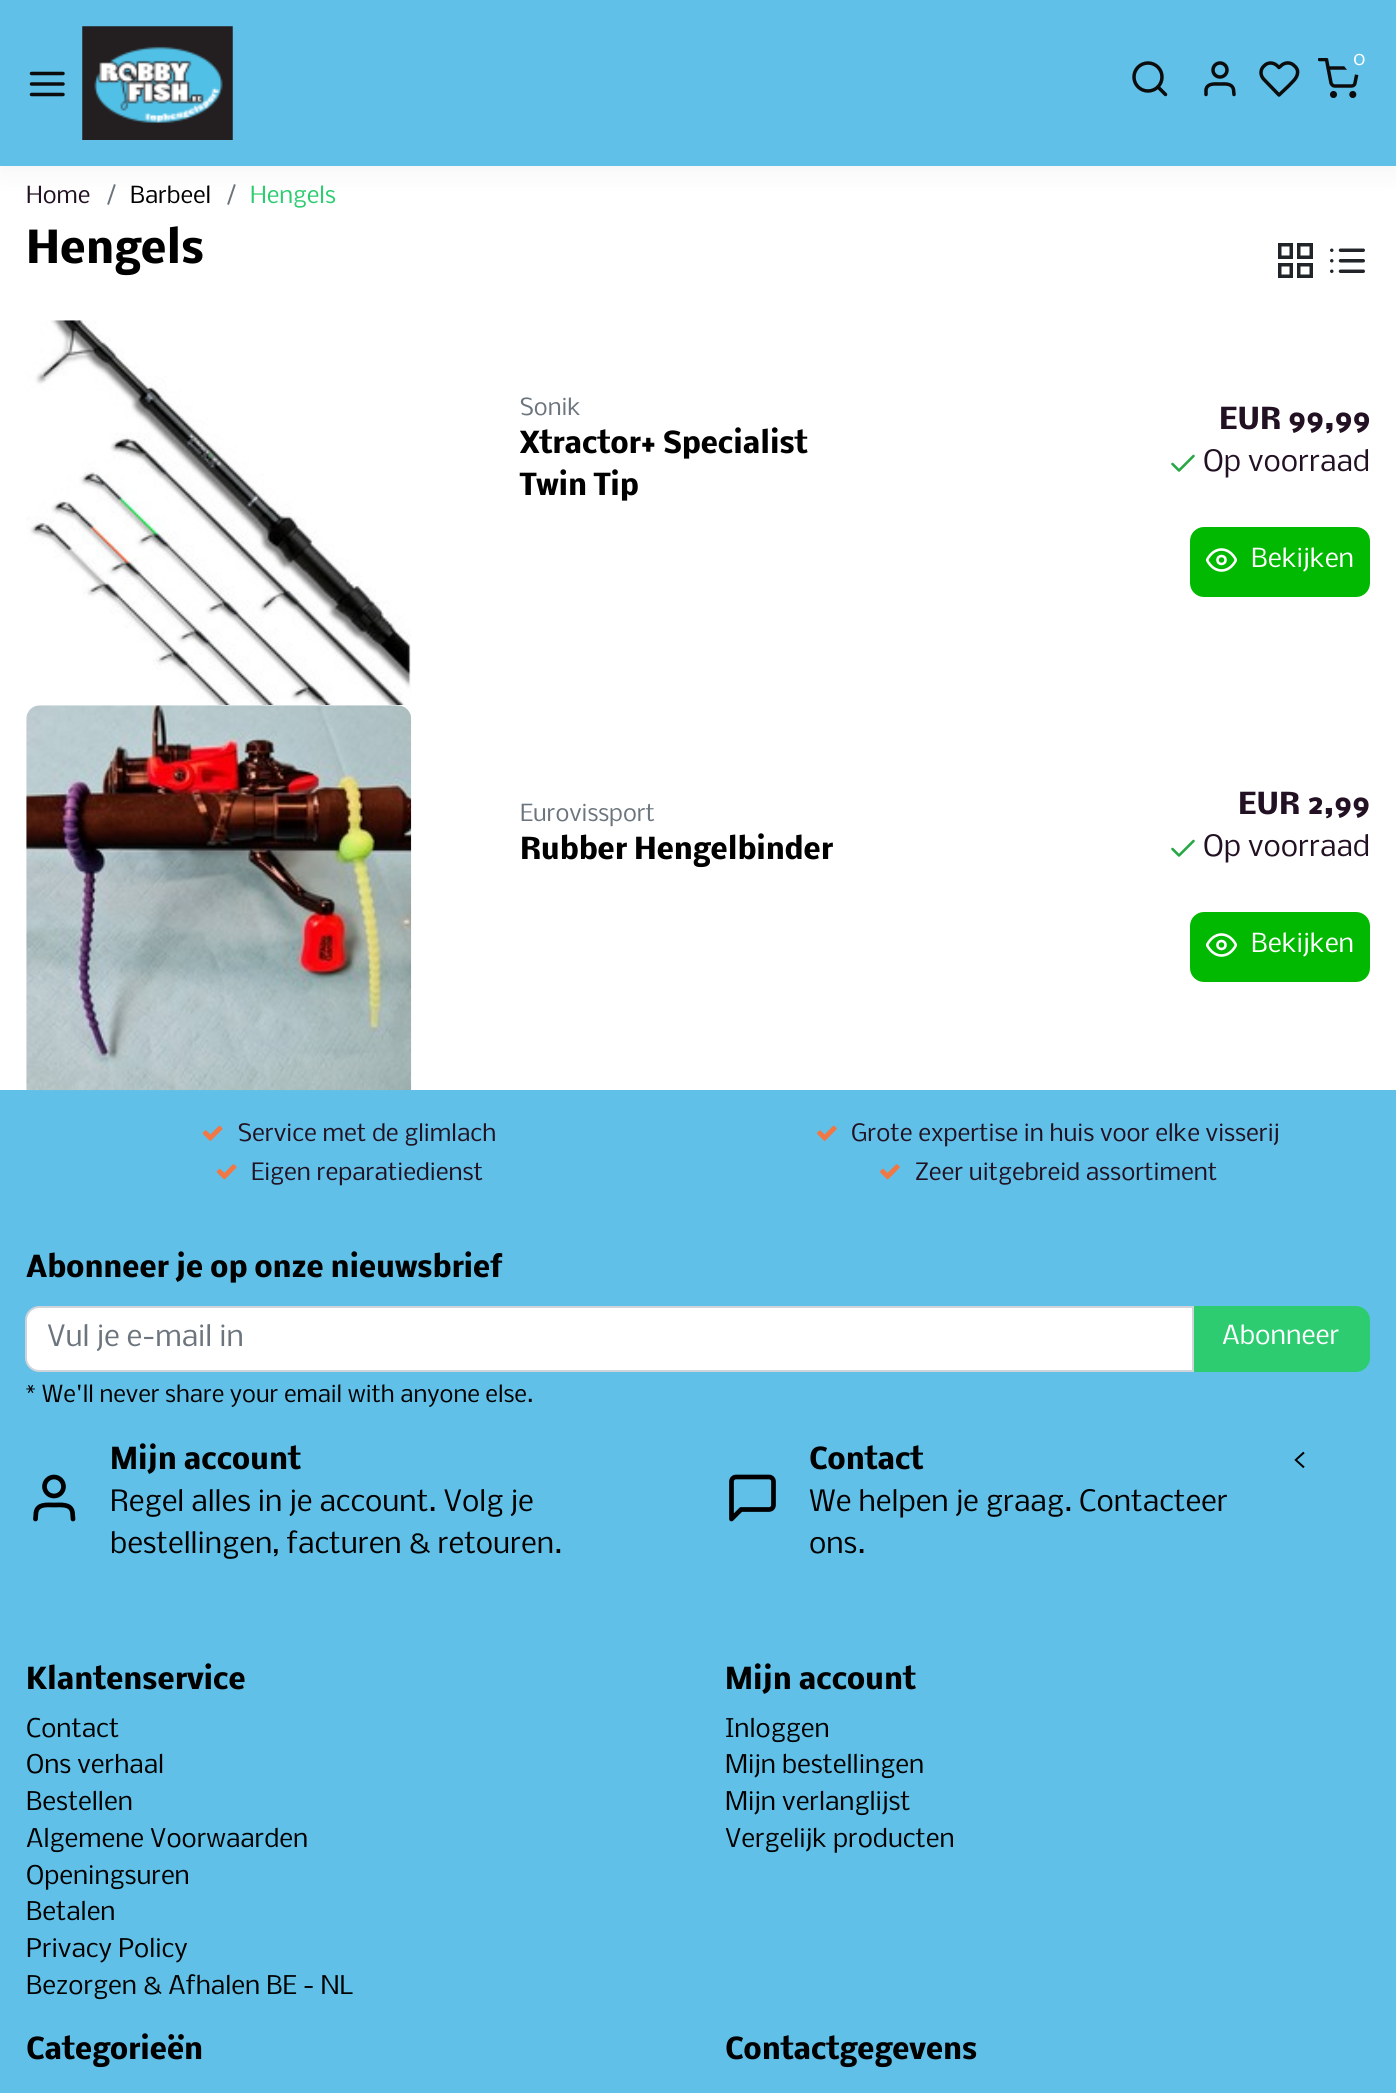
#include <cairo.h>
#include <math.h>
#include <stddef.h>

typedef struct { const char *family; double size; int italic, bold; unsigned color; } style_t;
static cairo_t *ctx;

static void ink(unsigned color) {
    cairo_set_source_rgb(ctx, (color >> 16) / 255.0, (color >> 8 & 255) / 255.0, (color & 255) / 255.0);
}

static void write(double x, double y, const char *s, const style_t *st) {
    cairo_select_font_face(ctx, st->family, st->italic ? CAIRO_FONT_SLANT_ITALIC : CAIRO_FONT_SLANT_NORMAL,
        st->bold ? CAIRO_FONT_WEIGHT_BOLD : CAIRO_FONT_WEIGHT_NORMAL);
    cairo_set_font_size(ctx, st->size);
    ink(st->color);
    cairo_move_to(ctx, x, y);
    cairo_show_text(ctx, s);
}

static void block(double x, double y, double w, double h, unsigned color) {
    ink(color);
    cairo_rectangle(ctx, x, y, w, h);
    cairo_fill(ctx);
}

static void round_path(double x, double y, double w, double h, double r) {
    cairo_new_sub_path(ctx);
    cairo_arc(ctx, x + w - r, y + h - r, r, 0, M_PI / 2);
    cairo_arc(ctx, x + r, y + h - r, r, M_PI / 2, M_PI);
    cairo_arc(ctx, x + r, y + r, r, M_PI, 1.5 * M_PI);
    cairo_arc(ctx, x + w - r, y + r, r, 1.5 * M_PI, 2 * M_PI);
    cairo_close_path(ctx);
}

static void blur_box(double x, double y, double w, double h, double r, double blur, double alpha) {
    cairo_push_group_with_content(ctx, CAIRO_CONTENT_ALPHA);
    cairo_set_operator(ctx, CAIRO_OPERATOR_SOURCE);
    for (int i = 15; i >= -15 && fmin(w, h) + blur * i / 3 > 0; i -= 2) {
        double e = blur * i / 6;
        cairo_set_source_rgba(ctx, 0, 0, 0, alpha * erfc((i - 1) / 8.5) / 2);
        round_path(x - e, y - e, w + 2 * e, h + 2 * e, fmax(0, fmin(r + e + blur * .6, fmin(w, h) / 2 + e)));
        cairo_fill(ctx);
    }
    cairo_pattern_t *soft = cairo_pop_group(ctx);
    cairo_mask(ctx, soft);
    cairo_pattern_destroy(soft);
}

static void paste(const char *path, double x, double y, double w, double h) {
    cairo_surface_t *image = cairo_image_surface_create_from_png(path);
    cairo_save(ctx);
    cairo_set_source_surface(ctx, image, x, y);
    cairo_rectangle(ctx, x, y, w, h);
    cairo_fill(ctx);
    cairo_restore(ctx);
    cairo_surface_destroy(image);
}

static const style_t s1 = {"Nobile", 19, 0, 0, 0xffffff};
static const style_t s2 = {"Nobile", 22.4, 0, 0, 0x221122};
static const style_t s3 = {"Nobile", 22.4, 0, 0, 0x6c757d};
static const style_t s4 = {"Nobile", 22.4, 0, 0, 0x000000};
static const style_t s5 = {"Nobile", 22.4, 0, 0, 0x2ecc71};
static const style_t s6 = {"Nobile", 42, 0, 1, 0x000000};
static const style_t s7 = {"Nobile", 28, 0, 1, 0x000000};
static const style_t s8 = {"Nobile", 28, 0, 1, 0x221122};
static const style_t s9 = {"Nobile", 28, 0, 0, 0x221122};
static const style_t s10 = {"Nobile", 25, 0, 0, 0xffffff};
static const style_t s11 = {"Nobile", 22.75, 0, 0, 0x221122};
static const style_t s12 = {"Nobile", 28, 0, 0, 0x6c757d};
static const style_t s13 = {"Nobile", 28, 0, 0, 0x000000};
static const style_t s14 = {"Nobile", 24.5, 0, 0, 0x000000};

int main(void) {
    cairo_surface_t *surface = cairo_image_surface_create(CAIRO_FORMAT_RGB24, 1396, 2093);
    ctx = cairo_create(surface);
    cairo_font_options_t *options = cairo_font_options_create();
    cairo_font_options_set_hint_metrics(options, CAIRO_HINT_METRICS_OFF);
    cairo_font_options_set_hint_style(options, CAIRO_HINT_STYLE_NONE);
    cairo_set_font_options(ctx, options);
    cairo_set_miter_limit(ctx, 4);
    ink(0xffffff);
    cairo_paint(ctx);
    ink(0x000000);
    blur_box(0, 4, 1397, 166, 0, 14, 0.05);
    block(0, 0, 1396, 166, 0x60c0e8);
    cairo_new_path(ctx);
    cairo_move_to(ctx, 31.5, 84);
    cairo_line_to(ctx, 63, 84);
    cairo_move_to(ctx, 31.5, 73.5);
    cairo_line_to(ctx, 63, 73.5);
    cairo_move_to(ctx, 31.5, 94.5);
    cairo_line_to(ctx, 63, 94.5);
    ink(0x0d0c0c);
    cairo_set_line_width(ctx, 3.5);
    cairo_set_line_cap(ctx, CAIRO_LINE_CAP_ROUND);
    cairo_set_line_join(ctx, CAIRO_LINE_JOIN_ROUND);
    cairo_stroke(ctx);
    paste("pic1.png", 82, 26, 151, 114);
    cairo_save(ctx);
    cairo_rectangle(ctx, 1318, 58, 42, 42);
    cairo_clip(ctx);
    cairo_new_path(ctx);
    cairo_move_to(ctx, 1319.5, 59.5);
    cairo_line_to(ctx, 1326.5, 59.5);
    cairo_line_to(ctx, 1331, 83);
    cairo_curve_to(ctx, 1331.5, 84.5, 1333, 86, 1334.5, 86);
    cairo_line_to(ctx, 1351.5, 86);
    cairo_curve_to(ctx, 1353.5, 86, 1355, 84.5, 1355, 83);
    cairo_line_to(ctx, 1358, 68);
    cairo_line_to(ctx, 1328, 68);
    cairo_stroke(ctx);
    cairo_restore(ctx);
    ink(0x60c0e8);
    cairo_arc(ctx, 1359.5, 57.5, 17.5, 0, 2 * M_PI);
    cairo_fill(ctx);
    write(1353, 65, "0", &s1);
    cairo_new_path(ctx);
    cairo_arc(ctx, 1333.5, 94.5, 1.8, 0, 2 * M_PI);
    ink(0x0d0c0c);
    cairo_set_line_cap(ctx, CAIRO_LINE_CAP_BUTT);
    cairo_set_line_join(ctx, CAIRO_LINE_JOIN_MITER);
    cairo_stroke(ctx);
    cairo_arc(ctx, 1352.8, 94.5, 1.8, 0, 2 * M_PI);
    cairo_stroke(ctx);
    cairo_arc(ctx, 1148, 77, 14, 0, 2 * M_PI);
    cairo_stroke(ctx);
    cairo_new_path(ctx);
    cairo_move_to(ctx, 1165.5, 94.5);
    cairo_line_to(ctx, 1158, 87);
    cairo_set_line_cap(ctx, CAIRO_LINE_CAP_ROUND);
    cairo_set_line_join(ctx, CAIRO_LINE_JOIN_ROUND);
    cairo_stroke(ctx);
    cairo_new_path(ctx);
    cairo_move_to(ctx, 1234, 94.5);
    cairo_line_to(ctx, 1233.5, 89.5);
    cairo_curve_to(ctx, 1232, 83, 1225, 84, 1220, 84);
    cairo_curve_to(ctx, 1214.5, 84, 1207.5, 83, 1206, 89.5);
    cairo_line_to(ctx, 1206, 94.5);
    cairo_stroke(ctx);
    cairo_arc(ctx, 1220, 70, 7, 0, 2 * M_PI);
    cairo_set_line_cap(ctx, CAIRO_LINE_CAP_BUTT);
    cairo_set_line_join(ctx, CAIRO_LINE_JOIN_MITER);
    cairo_stroke(ctx);
    cairo_new_path(ctx);
    cairo_move_to(ctx, 1294.5, 66);
    cairo_curve_to(ctx, 1291.5, 62.5, 1286.5, 62, 1282.5, 64.5);
    cairo_line_to(ctx, 1279, 67.5);
    cairo_line_to(ctx, 1277.5, 66);
    cairo_curve_to(ctx, 1273.5, 62, 1267.5, 62, 1264, 66);
    cairo_curve_to(ctx, 1260, 69.5, 1260, 75.5, 1264, 79.5);
    cairo_line_to(ctx, 1279, 95);
    cairo_line_to(ctx, 1288.5, 86);
    cairo_curve_to(ctx, 1292.5, 81.5, 1298.5, 77.5, 1297.5, 70.5);
    cairo_curve_to(ctx, 1297, 69, 1296, 67, 1294.5, 66);
    cairo_close_path(ctx);
    cairo_set_line_cap(ctx, CAIRO_LINE_CAP_ROUND);
    cairo_set_line_join(ctx, CAIRO_LINE_JOIN_ROUND);
    cairo_stroke(ctx);
    write(26, 203, "Home", &s2);
    write(105, 203, "/", &s3);
    write(130, 203, "Barbeel", &s4);
    write(225, 203, "/", &s3);
    write(250, 203, "Hengels", &s5);
    write(26, 263, "Hengels", &s6);
    cairo_rectangle(ctx, 1279.75, 244.75, 11.5, 12.5);
    ink(0x212529);
    cairo_set_line_cap(ctx, CAIRO_LINE_CAP_BUTT);
    cairo_set_line_join(ctx, CAIRO_LINE_JOIN_MITER);
    cairo_stroke(ctx);
    cairo_rectangle(ctx, 1298.75, 244.75, 12.5, 12.5);
    cairo_stroke(ctx);
    cairo_rectangle(ctx, 1298.75, 264.75, 12.5, 11.5);
    cairo_stroke(ctx);
    cairo_rectangle(ctx, 1279.75, 264.75, 11.5, 11.5);
    cairo_stroke(ctx);
    paste("pic2.png", 1330, 248, 35, 25);
    paste("pic3.png", 26, 320, 385, 385);
    write(520, 415, "Sonik", &s3);
    write(520, 453, "Xtractor+ Specialist", &s7);
    write(520, 495, "Twin Tip", &s7);
    write(1219, 429, "EUR 99,99", &s8);
    cairo_new_path(ctx);
    cairo_move_to(ctx, 1193.5, 456);
    cairo_line_to(ctx, 1179, 470.5);
    cairo_line_to(ctx, 1172.5, 464);
    ink(0x28a745);
    cairo_set_line_width(ctx, 2.6);
    cairo_set_line_cap(ctx, CAIRO_LINE_CAP_ROUND);
    cairo_set_line_join(ctx, CAIRO_LINE_JOIN_ROUND);
    cairo_stroke(ctx);
    write(1203, 471, "Op voorraad", &s9);
    ink(0x00b900);
    round_path(1191, 528, 178, 68, 13);
    cairo_fill_preserve(ctx);
    cairo_set_line_width(ctx, 2);
    cairo_set_line_cap(ctx, CAIRO_LINE_CAP_BUTT);
    cairo_set_line_join(ctx, CAIRO_LINE_JOIN_MITER);
    cairo_stroke(ctx);
    cairo_save(ctx);
    cairo_rectangle(ctx, 1206, 544, 31, 32);
    cairo_clip(ctx);
    cairo_new_path(ctx);
    cairo_move_to(ctx, 1207, 560);
    cairo_curve_to(ctx, 1214, 546, 1229, 546, 1236, 560);
    cairo_curve_to(ctx, 1229, 574, 1214, 574, 1207, 560);
    cairo_close_path(ctx);
    ink(0xffffff);
    cairo_set_line_width(ctx, 2.6);
    cairo_set_line_cap(ctx, CAIRO_LINE_CAP_ROUND);
    cairo_set_line_join(ctx, CAIRO_LINE_JOIN_ROUND);
    cairo_stroke(ctx);
    cairo_restore(ctx);
    cairo_arc(ctx, 1221.5, 560, 4, 0, 2 * M_PI);
    ink(0xffffff);
    cairo_set_line_width(ctx, 2.6);
    cairo_stroke(ctx);
    write(1251, 567, "Bekijken", &s10);
    block(0, 1090, 1396, 1003, 0x60c0e8);
    paste("pic4.png", 26, 705, 386, 386);
    write(520, 821, "Eurovissport", &s3);
    write(520, 859, "Rubber Hengelbinder", &s7);
    write(1238, 814, "EUR 2,99", &s8);
    cairo_new_path(ctx);
    cairo_move_to(ctx, 1193.5, 841);
    cairo_line_to(ctx, 1179, 855.5);
    cairo_line_to(ctx, 1172.5, 849);
    ink(0x28a745);
    cairo_set_line_cap(ctx, CAIRO_LINE_CAP_ROUND);
    cairo_set_line_join(ctx, CAIRO_LINE_JOIN_ROUND);
    cairo_stroke(ctx);
    write(1203, 856, "Op voorraad", &s9);
    ink(0x00b900);
    round_path(1191, 913, 178, 68, 13);
    cairo_fill_preserve(ctx);
    cairo_set_line_width(ctx, 2);
    cairo_set_line_cap(ctx, CAIRO_LINE_CAP_BUTT);
    cairo_set_line_join(ctx, CAIRO_LINE_JOIN_MITER);
    cairo_stroke(ctx);
    cairo_save(ctx);
    cairo_rectangle(ctx, 1206, 929, 31, 32);
    cairo_clip(ctx);
    cairo_new_path(ctx);
    cairo_move_to(ctx, 1207, 945);
    cairo_curve_to(ctx, 1214, 931, 1229, 931, 1236, 945);
    cairo_curve_to(ctx, 1229, 959, 1214, 959, 1207, 945);
    cairo_close_path(ctx);
    ink(0xffffff);
    cairo_set_line_width(ctx, 2.6);
    cairo_set_line_cap(ctx, CAIRO_LINE_CAP_ROUND);
    cairo_set_line_join(ctx, CAIRO_LINE_JOIN_ROUND);
    cairo_stroke(ctx);
    cairo_restore(ctx);
    cairo_arc(ctx, 1221.5, 945, 4, 0, 2 * M_PI);
    ink(0xffffff);
    cairo_set_line_width(ctx, 2.6);
    cairo_stroke(ctx);
    write(1251, 952, "Bekijken", &s10);
    paste("pic5.png", 202, 1125, 21, 16);
    write(238, 1141, "Service met de glimlach", &s11);
    paste("pic6.png", 817, 1125, 20, 16);
    write(851, 1141, "Grote expertise in huis voor elke visserij", &s11);
    paste("pic7.png", 216, 1164, 21, 16);
    write(251, 1180, "Eigen reparatiedienst", &s11);
    paste("pic8.png", 880, 1164, 20, 16);
    write(915, 1180, "Zeer uitgebreid assortiment", &s11);
    write(26, 1277, "Abonneer je op onze nieuwsbrief", &s7);
    ink(0xffffff);
    cairo_new_path(ctx);
    cairo_move_to(ctx, 39, 1307);
    cairo_line_to(ctx, 1193, 1307);
    cairo_line_to(ctx, 1193, 1371);
    cairo_line_to(ctx, 39, 1371);
    cairo_curve_to(ctx, 32, 1371, 26, 1365, 26, 1358);
    cairo_line_to(ctx, 26, 1320);
    cairo_curve_to(ctx, 26, 1313, 32, 1307, 39, 1307);
    cairo_close_path(ctx);
    cairo_fill_preserve(ctx);
    ink(0xced4da);
    cairo_set_line_width(ctx, 2);
    cairo_stroke(ctx);
    write(47, 1346, "Vul je e-mail in", &s12);
    ink(0x2ecc71);
    cairo_new_path(ctx);
    cairo_move_to(ctx, 1195, 1307);
    cairo_line_to(ctx, 1356, 1307);
    cairo_curve_to(ctx, 1363, 1307, 1369, 1313, 1369, 1320);
    cairo_line_to(ctx, 1369, 1358);
    cairo_curve_to(ctx, 1369, 1365, 1363, 1371, 1356, 1371);
    cairo_line_to(ctx, 1195, 1371);
    cairo_close_path(ctx);
    cairo_fill_preserve(ctx);
    cairo_stroke(ctx);
    write(1222, 1344, "Abonneer", &s10);
    write(26, 1402, "* We'll never share your email with anyone else.", &s4);
    cairo_new_path(ctx);
    cairo_move_to(ctx, 73, 1519);
    cairo_line_to(ctx, 72.5, 1512.5);
    cairo_curve_to(ctx, 71, 1503.5, 61, 1505, 54, 1505);
    cairo_curve_to(ctx, 47.5, 1505, 37.5, 1503.5, 36, 1512.5);
    cairo_line_to(ctx, 35.5, 1519);
    cairo_set_line_width(ctx, 4.7);
    cairo_set_line_cap(ctx, CAIRO_LINE_CAP_ROUND);
    cairo_set_line_join(ctx, CAIRO_LINE_JOIN_ROUND);
    cairo_stroke(ctx);
    cairo_arc(ctx, 54, 1486.5, 9.5, 0, 2 * M_PI);
    cairo_set_line_cap(ctx, CAIRO_LINE_CAP_BUTT);
    cairo_set_line_join(ctx, CAIRO_LINE_JOIN_MITER);
    cairo_stroke(ctx);
    write(110, 1469, "Mijn account", &s7);
    write(110, 1511, "Regel alles in je account. Volg je", &s13);
    write(110, 1553, "bestellingen, facturen & retouren.", &s13);
    cairo_new_path(ctx);
    cairo_move_to(ctx, 773.5, 1505);
    cairo_curve_to(ctx, 773.5, 1507.5, 771.5, 1509.5, 769, 1509.5);
    cairo_line_to(ctx, 741, 1509.5);
    cairo_line_to(ctx, 731.5, 1519);
    cairo_line_to(ctx, 731.5, 1481.5);
    cairo_curve_to(ctx, 731.5, 1479, 733.5, 1477, 736, 1477);
    cairo_line_to(ctx, 769, 1477);
    cairo_curve_to(ctx, 771.5, 1477, 773.5, 1479, 773.5, 1481.5);
    cairo_close_path(ctx);
    cairo_set_line_cap(ctx, CAIRO_LINE_CAP_ROUND);
    cairo_set_line_join(ctx, CAIRO_LINE_JOIN_ROUND);
    cairo_stroke(ctx);
    write(809, 1469, "Contact", &s7);
    write(809, 1511, "We helpen je graag. Contacteer", &s13);
    write(809, 1553, "ons.", &s13);
    write(1291, 1469, "<", &s13);
    write(26, 1689, "Klantenservice", &s7);
    write(26, 1737, "Contact", &s14);
    write(26, 1773, "Ons verhaal", &s14);
    write(26, 1810, "Bestellen", &s14);
    write(26, 1847, "Algemene Voorwaarden", &s14);
    write(26, 1884, "Openingsuren", &s14);
    write(26, 1920, "Betalen", &s14);
    write(26, 1957, "Privacy Policy", &s14);
    write(26, 1994, "Bezorgen & Afhalen BE - NL", &s14);
    write(725, 1689, "Mijn account", &s7);
    write(725, 1737, "Inloggen", &s14);
    write(725, 1773, "Mijn bestellingen", &s14);
    write(725, 1810, "Mijn verlanglijst", &s14);
    write(725, 1847, "Vergelijk producten", &s14);
    write(26, 2059, "Categorieën", &s7);
    write(725, 2059, "Contactgegevens", &s7);
    cairo_surface_write_to_png(surface, "screenshot.png");
    cairo_font_options_destroy(options);
    cairo_destroy(ctx);
    cairo_surface_destroy(surface);
    return 0;
}
